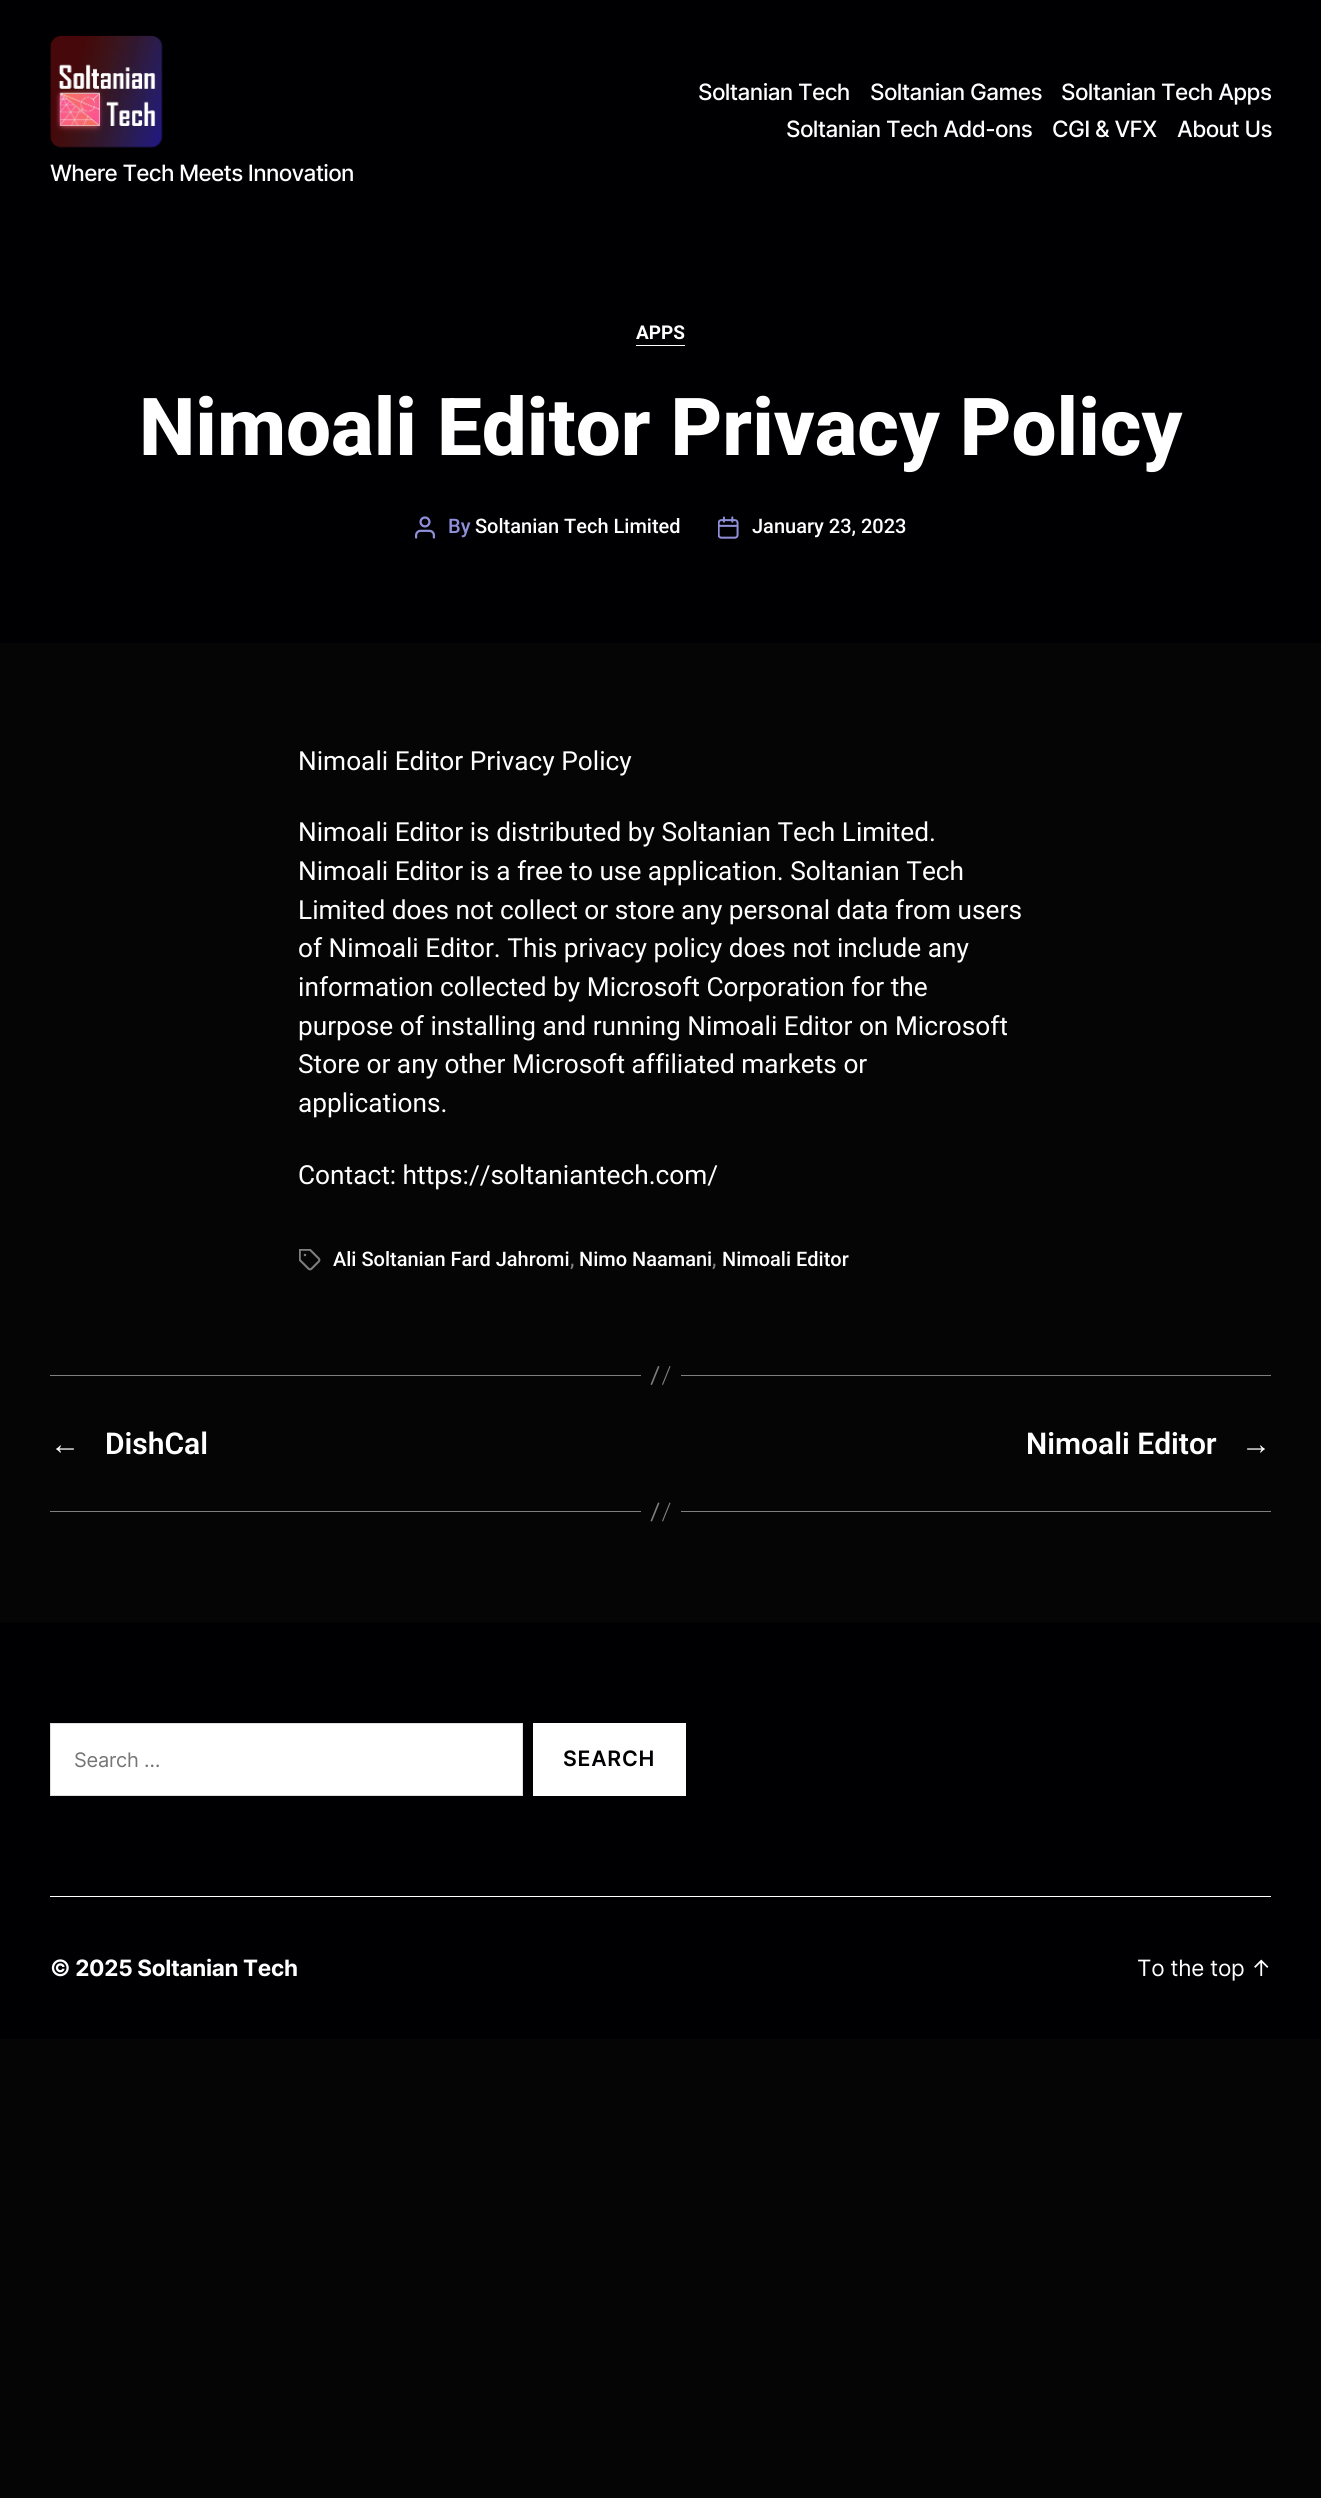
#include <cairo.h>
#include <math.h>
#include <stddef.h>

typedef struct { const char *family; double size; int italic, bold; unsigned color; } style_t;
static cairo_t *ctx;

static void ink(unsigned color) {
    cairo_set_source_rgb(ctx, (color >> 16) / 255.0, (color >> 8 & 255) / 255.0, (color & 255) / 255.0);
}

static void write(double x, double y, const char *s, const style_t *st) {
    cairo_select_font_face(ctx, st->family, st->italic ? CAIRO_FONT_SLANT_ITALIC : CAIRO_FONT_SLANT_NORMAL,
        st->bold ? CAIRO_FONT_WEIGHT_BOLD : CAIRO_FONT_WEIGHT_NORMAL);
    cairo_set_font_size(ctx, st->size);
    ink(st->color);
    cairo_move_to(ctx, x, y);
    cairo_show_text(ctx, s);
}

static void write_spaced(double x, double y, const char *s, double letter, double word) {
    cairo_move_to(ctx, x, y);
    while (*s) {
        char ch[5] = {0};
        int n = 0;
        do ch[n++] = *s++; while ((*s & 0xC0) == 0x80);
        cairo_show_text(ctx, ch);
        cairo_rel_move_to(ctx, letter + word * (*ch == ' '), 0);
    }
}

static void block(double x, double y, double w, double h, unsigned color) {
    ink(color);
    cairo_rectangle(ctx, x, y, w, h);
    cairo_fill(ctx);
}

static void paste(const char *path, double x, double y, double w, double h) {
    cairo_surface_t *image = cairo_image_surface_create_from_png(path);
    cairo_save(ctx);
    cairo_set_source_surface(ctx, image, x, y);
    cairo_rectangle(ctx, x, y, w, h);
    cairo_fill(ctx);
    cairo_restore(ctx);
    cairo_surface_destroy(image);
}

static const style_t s1 = {"Roboto", 19, 0, 1, 0xffffff};
static const style_t s2 = {"Roboto ExtraBold", 80, 0, 0, 0xffffff};
static const style_t s3 = {"Roboto Medium", 20, 0, 0, 0x9090da};
static const style_t s4 = {"Roboto Medium", 20, 0, 0, 0xffffff};
static const style_t s5 = {"Roboto", 26.25, 0, 0, 0xffffff};
static const style_t s6 = {"Roboto Medium", 20, 0, 0, 0x7f7f7f};
static const style_t s7 = {"Liberation Sans", 30, 0, 1, 0xffffff};
static const style_t s8 = {"Roboto SemiBold", 30, 0, 0, 0xffffff};

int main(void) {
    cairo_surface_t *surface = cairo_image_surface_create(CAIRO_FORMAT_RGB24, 1321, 2498);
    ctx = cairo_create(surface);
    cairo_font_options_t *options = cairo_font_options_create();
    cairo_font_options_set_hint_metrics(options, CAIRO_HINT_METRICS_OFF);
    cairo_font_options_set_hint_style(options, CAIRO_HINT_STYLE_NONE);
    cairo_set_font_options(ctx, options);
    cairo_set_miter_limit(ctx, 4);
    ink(0x050505);
    cairo_paint(ctx);
    block(0, 0, 1321, 643, 0x000002);
    cairo_select_font_face(ctx, "Inter Medium", CAIRO_FONT_SLANT_NORMAL, CAIRO_FONT_WEIGHT_NORMAL);
    cairo_set_font_size(ctx, 22.5);
    ink(0xffffff);
    write_spaced(698, 100, "Soltanian Tech", -0.6, 0);
    write_spaced(870, 100, "Soltanian Games", -0.6, 0);
    write_spaced(1061, 100, "Soltanian Tech Apps", -0.6, 0);
    write_spaced(786, 137, "Soltanian Tech Add-ons", -0.6, 0);
    write_spaced(1052, 137, "CGI & VFX", -0.6, 0);
    write_spaced(1177, 137, "About Us", -0.6, 0);
    paste("pic1.png", 50, 35, 113, 113);
    write_spaced(50, 181, "Where Tech Meets Innovation", -0.7, 0);
    block(636, 345, 49, 1, 0xffffff);
    write(636, 339, "APPS", &s1);
    write(139, 455, "Nimoali Editor Privacy Policy", &s2);
    paste("pic2.png", 415, 516, 20, 23);
    write(448, 533, "By", &s3);
    write(475, 533, "Soltanian Tech Limited", &s4);
    paste("pic3.png", 718, 516, 21, 23);
    write(752, 533, "January 23, 2023", &s4);
    write(298, 770, "Nimoali Editor Privacy Policy", &s5);
    write(298, 841, "Nimoali Editor is distributed by Soltanian Tech Limited.", &s5);
    write(298, 880, "Nimoali Editor is a free to use application. Soltanian Tech", &s5);
    write(298, 919, "Limited does not collect or store any personal data from users", &s5);
    write(298, 957, "of Nimoali Editor. This privacy policy does not include any", &s5);
    write(298, 996, "information collected by Microsoft Corporation for the", &s5);
    write(298, 1035, "purpose of installing and running Nimoali Editor on Microsoft", &s5);
    write(298, 1073, "Store or any other Microsoft affiliated markets or", &s5);
    write(298, 1112, "applications.", &s5);
    write(298, 1184, "Contact: https://soltaniantech.com/", &s5);
    paste("pic4.png", 299, 1249, 22, 22);
    write(333, 1266, "Ali Soltanian Fard Jahromi", &s4);
    write(570, 1266, ",", &s6);
    write(579, 1266, "Nimo Naamani", &s4);
    write(712, 1266, ",", &s6);
    write(722, 1266, "Nimoali Editor", &s4);
    block(681, 1375, 590, 1, 0x7f7f7f);
    block(50, 1375, 591, 1, 0x7f7f7f);
    cairo_new_path(ctx);
    cairo_move_to(ctx, 658, 1366);
    cairo_line_to(ctx, 659.5, 1366.5);
    cairo_line_to(ctx, 652, 1385);
    cairo_line_to(ctx, 650.5, 1384.5);
    cairo_close_path(ctx);
    cairo_move_to(ctx, 669.5, 1366);
    cairo_line_to(ctx, 670.5, 1366.5);
    cairo_line_to(ctx, 663, 1385);
    cairo_line_to(ctx, 662, 1384.5);
    cairo_close_path(ctx);
    cairo_fill(ctx);
    write(50, 1454, "←", &s7);
    write(105, 1454, "DishCal", &s8);
    write(1026, 1454, "Nimoali Editor", &s8);
    write(1241, 1454, "→", &s7);
    block(681, 1511, 590, 1, 0x7f7f7f);
    block(50, 1511, 591, 1, 0x7f7f7f);
    cairo_new_path(ctx);
    cairo_move_to(ctx, 658, 1502.5);
    cairo_line_to(ctx, 659.5, 1503);
    cairo_line_to(ctx, 652, 1521.5);
    cairo_line_to(ctx, 650.5, 1521);
    cairo_close_path(ctx);
    cairo_move_to(ctx, 669.5, 1502.5);
    cairo_line_to(ctx, 670.5, 1503);
    cairo_line_to(ctx, 663, 1521.5);
    cairo_line_to(ctx, 662, 1521);
    cairo_close_path(ctx);
    cairo_fill(ctx);
    block(0, 1623, 1321, 416, 0x000002);
    block(50, 1896, 1221, 1, 0xffffff);
    cairo_rectangle(ctx, 50.5, 1723.5, 472, 72);
    cairo_fill_preserve(ctx);
    ink(0xdedfdf);
    cairo_set_line_width(ctx, 1);
    cairo_stroke(ctx);
    cairo_select_font_face(ctx, "Inter", CAIRO_FONT_SLANT_NORMAL, CAIRO_FONT_WEIGHT_NORMAL);
    cairo_set_font_size(ctx, 20);
    ink(0x757575);
    write_spaced(74, 1767, "Search …", -0.25, 0);
    block(533, 1723, 153, 73, 0xffffff);
    cairo_select_font_face(ctx, "Inter SemiBold", CAIRO_FONT_SLANT_NORMAL, CAIRO_FONT_WEIGHT_NORMAL);
    cairo_set_font_size(ctx, 21.25);
    ink(0x000002);
    write_spaced(563, 1766, "SEARCH", 0.75, 0);
    cairo_select_font_face(ctx, "Inter", CAIRO_FONT_SLANT_NORMAL, CAIRO_FONT_WEIGHT_BOLD);
    cairo_set_font_size(ctx, 22.5);
    ink(0xffffff);
    write_spaced(50, 1976, "© 2025 Soltanian Tech", -0.3, 0);
    cairo_select_font_face(ctx, "Inter", CAIRO_FONT_SLANT_NORMAL, CAIRO_FONT_WEIGHT_NORMAL);
    write_spaced(1137, 1976, "To the top ↑", -0.3, 0);
    cairo_surface_write_to_png(surface, "screenshot.png");
    cairo_font_options_destroy(options);
    cairo_destroy(ctx);
    cairo_surface_destroy(surface);
    return 0;
}
